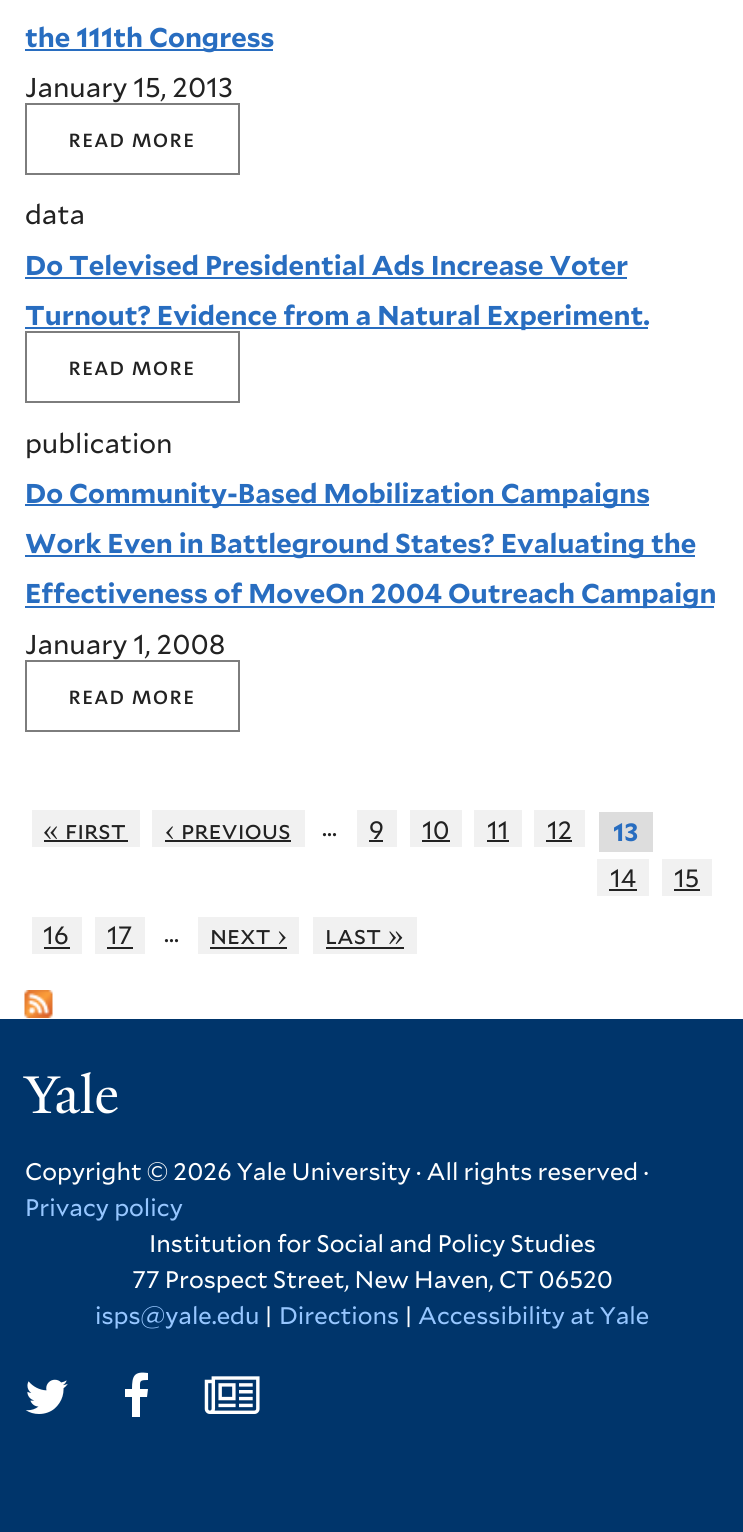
#include <cairo.h>
#include <math.h>
#include <stddef.h>

typedef struct { const char *family; double size; int italic, bold; unsigned color; } style_t;
static cairo_t *ctx;

static void ink(unsigned color) {
    cairo_set_source_rgb(ctx, (color >> 16) / 255.0, (color >> 8 & 255) / 255.0, (color & 255) / 255.0);
}

static void write(double x, double y, const char *s, const style_t *st) {
    cairo_select_font_face(ctx, st->family, st->italic ? CAIRO_FONT_SLANT_ITALIC : CAIRO_FONT_SLANT_NORMAL,
        st->bold ? CAIRO_FONT_WEIGHT_BOLD : CAIRO_FONT_WEIGHT_NORMAL);
    cairo_set_font_size(ctx, st->size);
    ink(st->color);
    cairo_move_to(ctx, x, y);
    cairo_show_text(ctx, s);
}

static void write_spaced(double x, double y, const char *s, double letter, double word) {
    cairo_move_to(ctx, x, y);
    while (*s) {
        char ch[5] = {0};
        int n = 0;
        do ch[n++] = *s++; while ((*s & 0xC0) == 0x80);
        cairo_show_text(ctx, ch);
        cairo_rel_move_to(ctx, letter + word * (*ch == ' '), 0);
    }
}

static void block(double x, double y, double w, double h, unsigned color) {
    ink(color);
    cairo_rectangle(ctx, x, y, w, h);
    cairo_fill(ctx);
}

static void paste(const char *path, double x, double y, double w, double h) {
    cairo_surface_t *image = cairo_image_surface_create_from_png(path);
    cairo_save(ctx);
    cairo_set_source_surface(ctx, image, x, y);
    cairo_rectangle(ctx, x, y, w, h);
    cairo_fill(ctx);
    cairo_restore(ctx);
    cairo_surface_destroy(image);
}

static const style_t s1 = {"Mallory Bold", 27.2, 0, 1, 0x286dc0};
static const style_t s2 = {"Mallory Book", 27.2, 0, 0, 0x222222};
static const style_t s3 = {"Mallory Book", 25, 0, 0, 0x222222};
static const style_t s4 = {"Mallory Bold", 25, 0, 1, 0x286dc0};
static const style_t s5 = {"Mallory Book", 24, 0, 0, 0xffffff};
static const style_t s6 = {"Mallory Book", 24, 0, 0, 0x96c6ff};

int main(void) {
    cairo_surface_t *surface = cairo_image_surface_create(CAIRO_FORMAT_RGB24, 743, 1532);
    ctx = cairo_create(surface);
    cairo_font_options_t *options = cairo_font_options_create();
    cairo_font_options_set_hint_metrics(options, CAIRO_HINT_METRICS_OFF);
    cairo_font_options_set_hint_style(options, CAIRO_HINT_STYLE_NONE);
    cairo_set_font_options(ctx, options);
    cairo_set_miter_limit(ctx, 4);
    ink(0xffffff);
    cairo_paint(ctx);
    block(25, 49, 248, 2, 0x286dc0);
    write(25, 47, "the 111th Congress", &s1);
    write(25, 97, "January 15, 2013", &s2);
    cairo_rectangle(ctx, 26, 104, 213, 70);
    ink(0x7d7d7d);
    cairo_stroke(ctx);
    cairo_select_font_face(ctx, "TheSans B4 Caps", CAIRO_FONT_SLANT_NORMAL, CAIRO_FONT_WEIGHT_NORMAL);
    cairo_set_font_size(ctx, 25.5);
    ink(0x222222);
    write_spaced(68, 147, "read more", 0.75, 0);
    write(25, 224, "data", &s2);
    write(25, 275, "Do Televised Presidential Ads Increase Voter", &s1);
    block(25, 277, 602, 2, 0x286dc0);
    block(25, 327, 623, 2, 0x286dc0);
    write(25, 325, "Turnout? Evidence from a Natural Experiment.", &s1);
    cairo_rectangle(ctx, 26, 332, 213, 70);
    ink(0x7d7d7d);
    cairo_stroke(ctx);
    cairo_select_font_face(ctx, "TheSans B4 Caps", CAIRO_FONT_SLANT_NORMAL, CAIRO_FONT_WEIGHT_NORMAL);
    cairo_set_font_size(ctx, 25.5);
    ink(0x222222);
    write_spaced(68, 375, "read more", 0.75, 0);
    write(25, 453, "publication", &s2);
    block(25, 504, 624, 2, 0x286dc0);
    write(25, 503, "Do Community-Based Mobilization Campaigns", &s1);
    block(25, 555, 670, 2, 0x286dc0);
    write(25, 553, "Work Even in Battleground States? Evaluating the", &s1);
    block(25, 606, 689, 2, 0x286dc0);
    write(25, 603, "Effectiveness of MoveOn 2004 Outreach Campaign", &s1);
    write(25, 654, "January 1, 2008", &s2);
    cairo_rectangle(ctx, 26, 661, 213, 70);
    ink(0x7d7d7d);
    cairo_stroke(ctx);
    cairo_select_font_face(ctx, "TheSans B4 Caps", CAIRO_FONT_SLANT_NORMAL, CAIRO_FONT_WEIGHT_NORMAL);
    cairo_set_font_size(ctx, 25.5);
    ink(0x222222);
    write_spaced(68, 704, "read more", 0.75, 0);
    block(32, 810, 108, 37, 0xf1f1f1);
    cairo_select_font_face(ctx, "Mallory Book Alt", CAIRO_FONT_SLANT_NORMAL, CAIRO_FONT_WEIGHT_NORMAL);
    cairo_set_font_size(ctx, 25);
    ink(0x222222);
    write_spaced(43, 839, "« first", 0, 1);
    block(44, 840, 84, 2, 0x222222);
    block(152, 810, 153, 37, 0xf1f1f1);
    ink(0x222222);
    write_spaced(165, 839, "‹ previous", 0, 1);
    block(165, 840, 126, 2, 0x222222);
    write(322, 836, "…", &s3);
    block(357, 810, 40, 37, 0xf1f1f1);
    write(369, 839, "9", &s3);
    block(369, 840, 14, 2, 0x222222);
    block(410, 810, 52, 37, 0xf1f1f1);
    write(422, 839, "10", &s3);
    block(422, 840, 28, 2, 0x222222);
    block(474, 810, 48, 37, 0xf1f1f1);
    write(487, 839, "11", &s3);
    block(487, 840, 22, 2, 0x222222);
    block(534, 810, 51, 37, 0xf1f1f1);
    write(547, 839, "12", &s3);
    block(546, 840, 26, 2, 0x222222);
    block(599, 812, 54, 40, 0xdddddd);
    write(613, 841, "13", &s4);
    block(597, 859, 52, 37, 0xf1f1f1);
    write(610, 887, "14", &s3);
    block(609, 889, 28, 2, 0x222222);
    block(662, 859, 50, 37, 0xf1f1f1);
    write(674, 887, "15", &s3);
    block(674, 889, 26, 2, 0x222222);
    block(32, 917, 50, 37, 0xf1f1f1);
    write(43, 944, "16", &s3);
    block(44, 947, 26, 2, 0x222222);
    block(95, 917, 50, 37, 0xf1f1f1);
    write(107, 944, "17", &s3);
    block(107, 947, 26, 2, 0x222222);
    write(164, 942, "…", &s3);
    block(198, 917, 101, 37, 0xf1f1f1);
    cairo_select_font_face(ctx, "Mallory Book Alt", CAIRO_FONT_SLANT_NORMAL, CAIRO_FONT_WEIGHT_NORMAL);
    ink(0x222222);
    write_spaced(210, 944, "next ›", 0, 1);
    block(210, 947, 77, 2, 0x222222);
    block(313, 917, 104, 37, 0xf1f1f1);
    ink(0x222222);
    write_spaced(325, 944, "last »", 0, 1);
    block(326, 947, 78, 2, 0x222222);
    paste("pic1.png", 24, 990, 29, 28);
    block(0, 1019, 743, 513, 0x00356b);
    paste("pic2.png", 23, 1072, 95, 42);
    write(25, 1180, "Copyright © 2026 Yale University · All rights reserved ·", &s5);
    write(25, 1216, "Privacy policy", &s6);
    write(149, 1252, "Institution for Social and Policy Studies", &s5);
    write(132, 1288, "77 Prospect Street, New Haven, CT 06520", &s5);
    write(95, 1324, "isps@yale.edu", &s6);
    write(264, 1324, "|", &s5);
    write(279, 1324, "Directions", &s6);
    write(404, 1324, "|", &s5);
    write(418, 1324, "Accessibility at Yale", &s6);
    paste("pic3.png", 25, 1379, 43, 35);
    ink(0xffffff);
    cairo_new_path(ctx);
    cairo_move_to(ctx, 148, 1373);
    cairo_line_to(ctx, 148, 1380);
    cairo_curve_to(ctx, 139, 1380, 140, 1381, 140, 1389);
    cairo_line_to(ctx, 148, 1389);
    cairo_line_to(ctx, 147, 1397);
    cairo_line_to(ctx, 140, 1397);
    cairo_line_to(ctx, 140, 1417);
    cairo_line_to(ctx, 132, 1417);
    cairo_line_to(ctx, 132, 1397);
    cairo_line_to(ctx, 125, 1397);
    cairo_line_to(ctx, 125, 1389);
    cairo_line_to(ctx, 132, 1389);
    cairo_curve_to(ctx, 132, 1376, 134, 1371, 148, 1373);
    cairo_close_path(ctx);
    cairo_fill(ctx);
    paste("pic4.png", 204, 1376, 56, 38);
    cairo_surface_write_to_png(surface, "screenshot.png");
    cairo_font_options_destroy(options);
    cairo_destroy(ctx);
    cairo_surface_destroy(surface);
    return 0;
}
